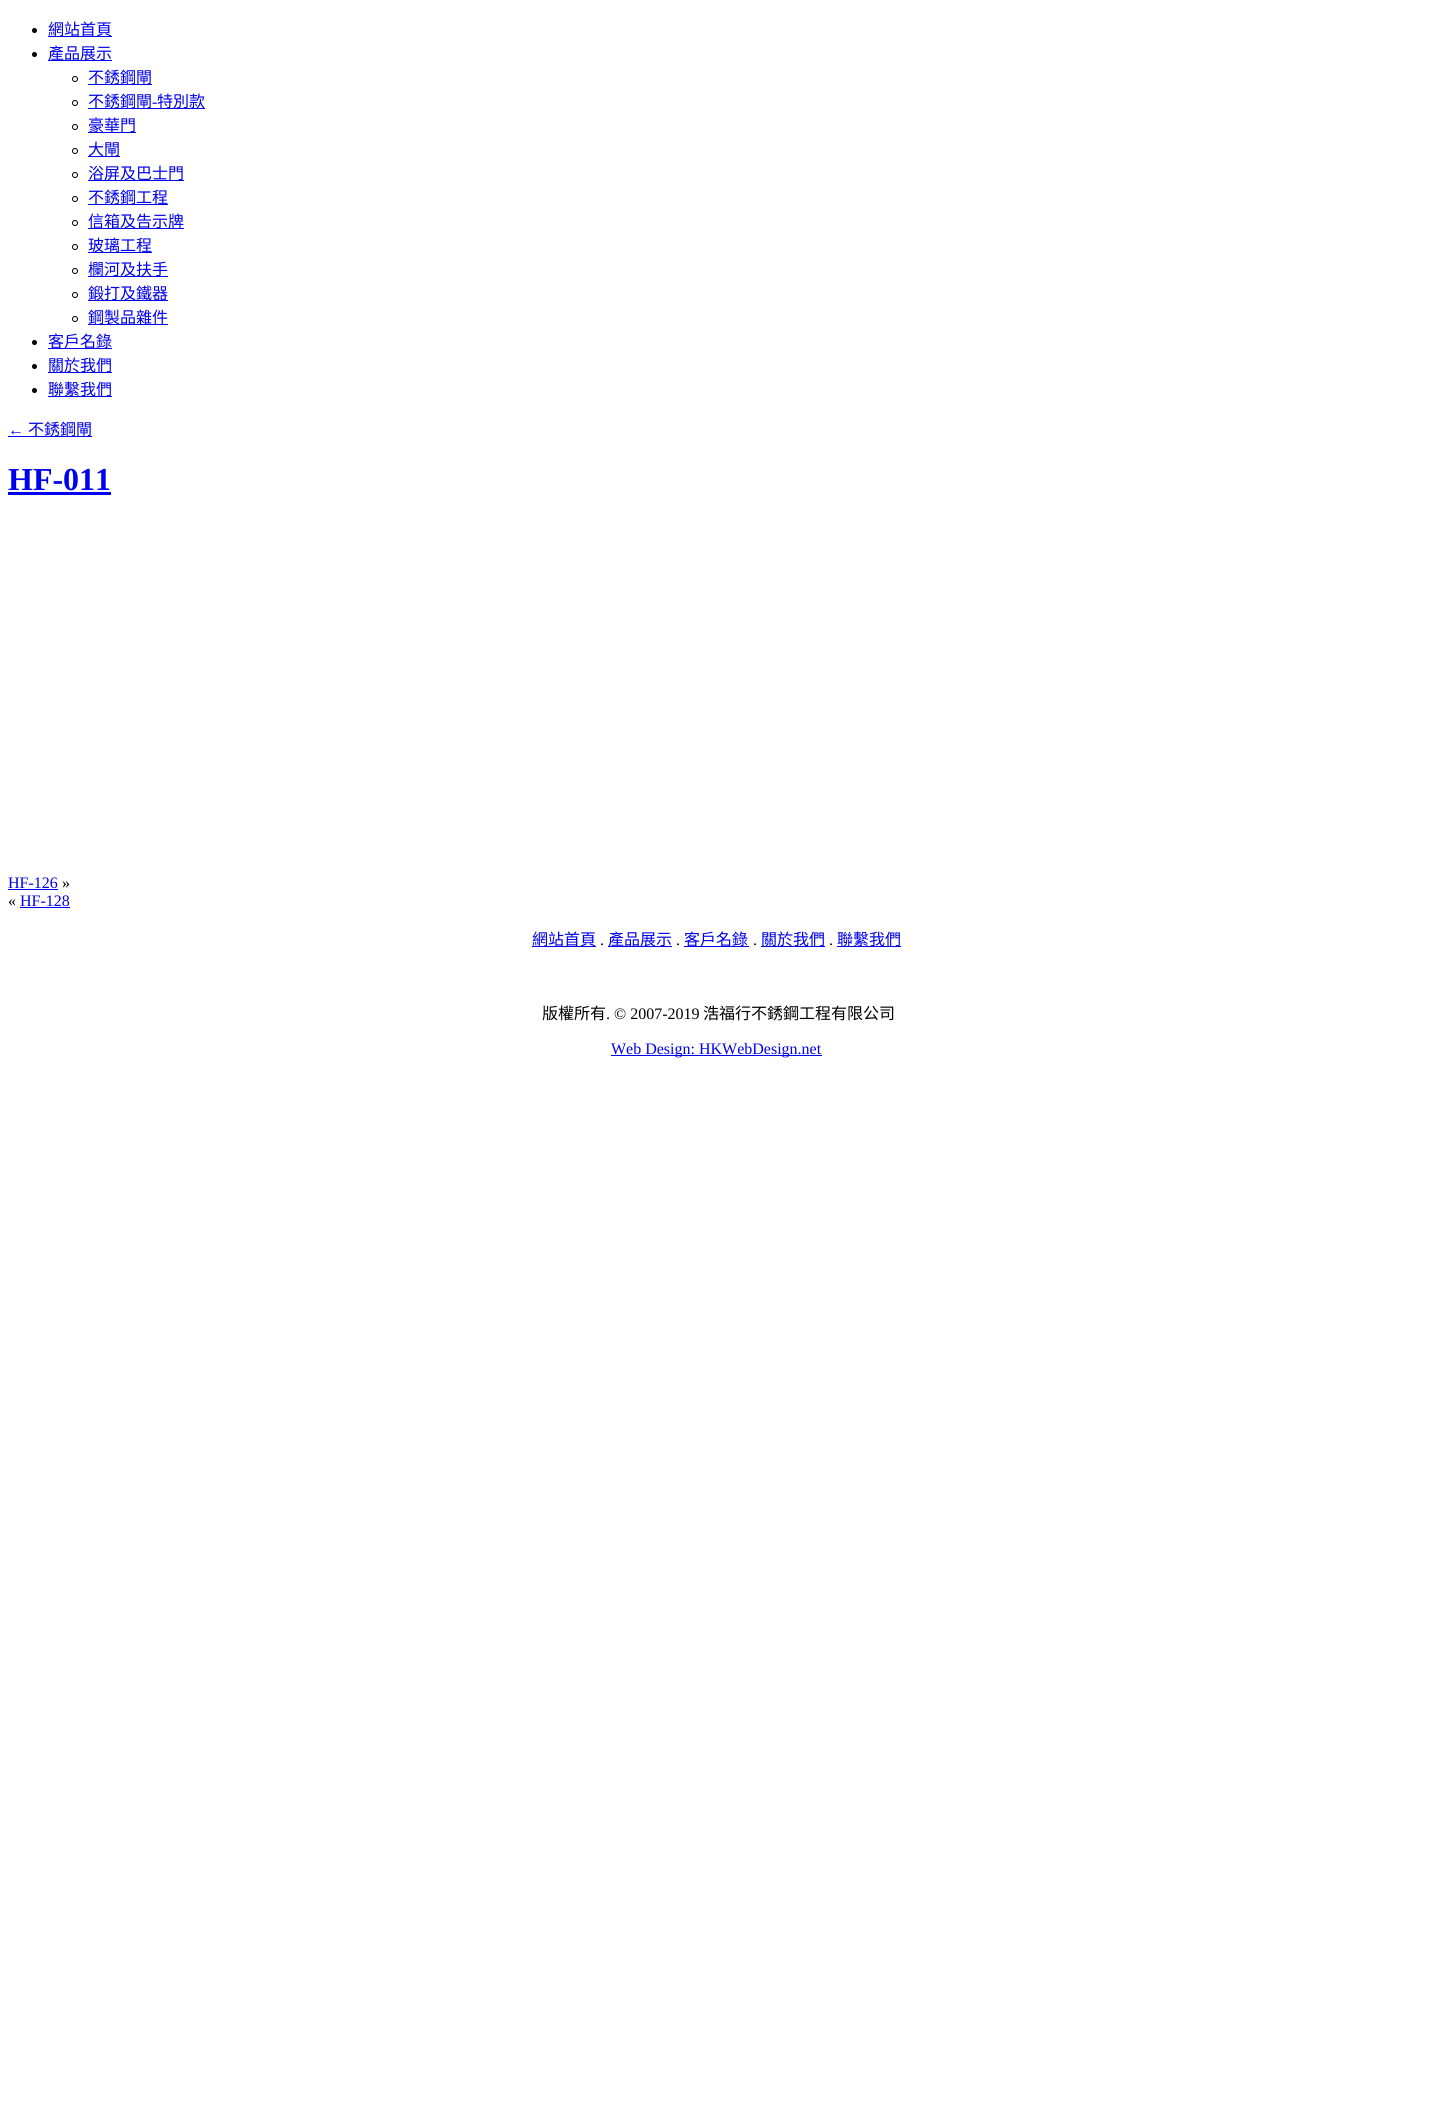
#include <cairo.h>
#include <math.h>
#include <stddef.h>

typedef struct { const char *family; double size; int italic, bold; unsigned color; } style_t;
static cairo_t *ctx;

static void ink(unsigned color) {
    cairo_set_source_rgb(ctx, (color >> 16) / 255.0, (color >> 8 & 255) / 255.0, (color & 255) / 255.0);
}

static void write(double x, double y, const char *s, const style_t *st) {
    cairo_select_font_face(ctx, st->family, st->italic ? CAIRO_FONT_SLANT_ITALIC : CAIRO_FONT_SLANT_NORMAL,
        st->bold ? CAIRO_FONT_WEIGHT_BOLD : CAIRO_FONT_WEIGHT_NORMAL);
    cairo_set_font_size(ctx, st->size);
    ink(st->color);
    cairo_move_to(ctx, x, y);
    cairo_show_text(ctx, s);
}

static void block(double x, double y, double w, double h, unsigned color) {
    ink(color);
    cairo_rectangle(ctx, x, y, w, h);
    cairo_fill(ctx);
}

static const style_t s1 = {"Noto Sans CJK HK", 16, 0, 0, 0x0000ee};
static const style_t s2 = {"Liberation Serif", 16, 0, 0, 0x0000ee};
static const style_t s3 = {"Liberation Serif", 32, 0, 1, 0x0000ee};
static const style_t s4 = {"Liberation Serif", 16, 0, 0, 0x000000};
static const style_t s5 = {"Noto Sans CJK HK", 16, 0, 0, 0x000000};

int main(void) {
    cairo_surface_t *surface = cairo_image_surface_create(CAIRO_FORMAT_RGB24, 1433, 2120);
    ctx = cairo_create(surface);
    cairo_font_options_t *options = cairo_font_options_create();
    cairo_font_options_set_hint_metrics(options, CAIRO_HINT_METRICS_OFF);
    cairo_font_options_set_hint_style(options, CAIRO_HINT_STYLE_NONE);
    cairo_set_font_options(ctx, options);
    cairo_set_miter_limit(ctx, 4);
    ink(0xffffff);
    cairo_paint(ctx);
    ink(0x000000);
    cairo_arc(ctx, 34.5, 30.5, 2.5, 0, 2 * M_PI);
    cairo_fill(ctx);
    block(48, 36, 64, 1, 0x0000ee);
    write(48, 35, "網站首頁", &s1);
    ink(0x000000);
    cairo_new_path(ctx);
    cairo_arc(ctx, 34.5, 54.5, 2.5, 0, 2 * M_PI);
    cairo_fill(ctx);
    block(48, 60, 64, 1, 0x0000ee);
    write(48, 59, "產品展示", &s1);
    cairo_new_path(ctx);
    cairo_arc(ctx, 75, 79, 2.5, 0, 2 * M_PI);
    ink(0x000000);
    cairo_set_line_width(ctx, 1);
    cairo_stroke(ctx);
    block(88, 84, 64, 1, 0x0000ee);
    write(88, 83, "不銹鋼閘", &s1);
    cairo_new_path(ctx);
    cairo_arc(ctx, 75, 103, 2.5, 0, 2 * M_PI);
    ink(0x000000);
    cairo_stroke(ctx);
    block(88, 108, 117, 1, 0x0000ee);
    write(88, 107, "不銹鋼閘", &s1);
    write(152, 107, "-", &s2);
    write(157, 107, "特別款", &s1);
    cairo_new_path(ctx);
    cairo_arc(ctx, 75, 127, 2.5, 0, 2 * M_PI);
    ink(0x000000);
    cairo_stroke(ctx);
    block(88, 132, 48, 1, 0x0000ee);
    write(88, 131, "豪華門", &s1);
    cairo_new_path(ctx);
    cairo_arc(ctx, 75, 151, 2.5, 0, 2 * M_PI);
    ink(0x000000);
    cairo_stroke(ctx);
    block(88, 156, 32, 1, 0x0000ee);
    write(88, 155, "大閘", &s1);
    cairo_new_path(ctx);
    cairo_arc(ctx, 75, 175, 2.5, 0, 2 * M_PI);
    ink(0x000000);
    cairo_stroke(ctx);
    block(88, 180, 96, 1, 0x0000ee);
    write(88, 179, "浴屏及巴士門", &s1);
    cairo_new_path(ctx);
    cairo_arc(ctx, 75, 199, 2.5, 0, 2 * M_PI);
    ink(0x000000);
    cairo_stroke(ctx);
    block(88, 204, 80, 1, 0x0000ee);
    write(88, 203, "不銹鋼工程", &s1);
    cairo_new_path(ctx);
    cairo_arc(ctx, 75, 223, 2.5, 0, 2 * M_PI);
    ink(0x000000);
    cairo_stroke(ctx);
    block(88, 228, 96, 1, 0x0000ee);
    write(88, 227, "信箱及告示牌", &s1);
    cairo_new_path(ctx);
    cairo_arc(ctx, 75, 247, 2.5, 0, 2 * M_PI);
    ink(0x000000);
    cairo_stroke(ctx);
    block(88, 252, 64, 1, 0x0000ee);
    write(88, 251, "玻璃工程", &s1);
    cairo_new_path(ctx);
    cairo_arc(ctx, 75, 271, 2.5, 0, 2 * M_PI);
    ink(0x000000);
    cairo_stroke(ctx);
    block(88, 276, 80, 1, 0x0000ee);
    write(88, 275, "欄河及扶手", &s1);
    cairo_new_path(ctx);
    cairo_arc(ctx, 75, 295, 2.5, 0, 2 * M_PI);
    ink(0x000000);
    cairo_stroke(ctx);
    block(88, 300, 80, 1, 0x0000ee);
    write(88, 299, "鍛打及鐵器", &s1);
    cairo_new_path(ctx);
    cairo_arc(ctx, 75, 319, 2.5, 0, 2 * M_PI);
    ink(0x000000);
    cairo_stroke(ctx);
    block(88, 324, 80, 1, 0x0000ee);
    write(88, 323, "鋼製品雜件", &s1);
    ink(0x000000);
    cairo_new_path(ctx);
    cairo_arc(ctx, 34.5, 342.5, 2.5, 0, 2 * M_PI);
    cairo_fill(ctx);
    block(48, 348, 64, 1, 0x0000ee);
    write(48, 347, "客戶名錄", &s1);
    ink(0x000000);
    cairo_new_path(ctx);
    cairo_arc(ctx, 34.5, 366.5, 2.5, 0, 2 * M_PI);
    cairo_fill(ctx);
    block(48, 372, 64, 1, 0x0000ee);
    write(48, 371, "關於我們", &s1);
    ink(0x000000);
    cairo_new_path(ctx);
    cairo_arc(ctx, 34.5, 390.5, 2.5, 0, 2 * M_PI);
    cairo_fill(ctx);
    block(48, 396, 64, 1, 0x0000ee);
    write(48, 395, "聯繫我們", &s1);
    write(8, 435, "←", &s2);
    block(8, 436, 84, 1, 0x0000ee);
    write(28, 435, "不銹鋼閘", &s1);
    write(8, 490, "HF-011", &s3);
    block(8, 492, 103, 3, 0x0000ee);
    write(8, 888, "HF-126", &s2);
    block(8, 889, 50, 1, 0x0000ee);
    write(62, 888, "»", &s4);
    write(8, 906, "«", &s4);
    write(20, 906, "HF-128", &s2);
    block(20, 907, 50, 1, 0x0000ee);
    block(532, 946, 64, 1, 0x0000ee);
    write(532, 945, "網站首頁", &s1);
    write(600, 945, ".", &s4);
    block(608, 946, 64, 1, 0x0000ee);
    write(608, 945, "產品展示", &s1);
    write(676, 945, ".", &s4);
    block(684, 946, 65, 1, 0x0000ee);
    write(684, 945, "客戶名錄", &s1);
    write(753, 945, ".", &s4);
    block(761, 946, 64, 1, 0x0000ee);
    write(761, 945, "關於我們", &s1);
    write(829, 945, ".", &s4);
    block(837, 946, 64, 1, 0x0000ee);
    write(837, 945, "聯繫我們", &s1);
    write(542, 1019, "版權所有", &s5);
    write(606, 1019, ". © 2007-2019", &s4);
    write(703, 1019, "浩福行不銹鋼工程有限公司", &s5);
    block(611, 1055, 211, 1, 0x0000ee);
    write(611, 1054, "Web Design: HKWebDesign.net", &s2);
    cairo_surface_write_to_png(surface, "screenshot.png");
    cairo_font_options_destroy(options);
    cairo_destroy(ctx);
    cairo_surface_destroy(surface);
    return 0;
}
